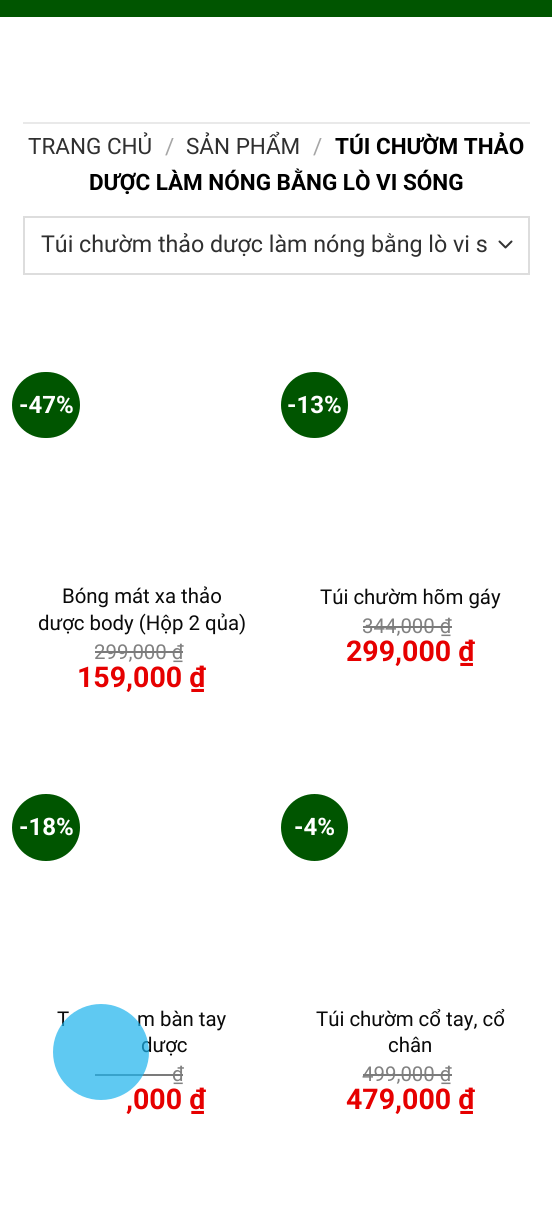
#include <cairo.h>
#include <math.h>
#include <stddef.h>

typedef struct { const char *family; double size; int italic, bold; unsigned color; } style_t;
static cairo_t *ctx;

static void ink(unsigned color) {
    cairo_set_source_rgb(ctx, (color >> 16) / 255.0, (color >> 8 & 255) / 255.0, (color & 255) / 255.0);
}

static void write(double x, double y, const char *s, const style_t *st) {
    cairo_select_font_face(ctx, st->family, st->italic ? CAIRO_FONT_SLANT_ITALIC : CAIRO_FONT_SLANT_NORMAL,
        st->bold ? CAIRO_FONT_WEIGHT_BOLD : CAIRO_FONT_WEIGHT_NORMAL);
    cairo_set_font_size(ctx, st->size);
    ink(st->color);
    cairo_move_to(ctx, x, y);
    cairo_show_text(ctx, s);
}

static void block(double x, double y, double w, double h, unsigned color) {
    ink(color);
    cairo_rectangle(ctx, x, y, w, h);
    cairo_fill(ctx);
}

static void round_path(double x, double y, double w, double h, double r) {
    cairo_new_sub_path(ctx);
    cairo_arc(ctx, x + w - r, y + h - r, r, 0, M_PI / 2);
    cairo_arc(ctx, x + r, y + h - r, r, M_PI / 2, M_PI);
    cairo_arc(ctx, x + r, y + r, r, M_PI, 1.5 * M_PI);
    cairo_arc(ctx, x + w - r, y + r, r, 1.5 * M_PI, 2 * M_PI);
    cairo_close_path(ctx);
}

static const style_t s1 = {"Roboto", 22.5, 0, 0, 0x303030};
static const style_t s2 = {"Roboto", 22.5, 0, 0, 0xa6a6a6};
static const style_t s3 = {"Roboto", 22.5, 0, 1, 0x000000};
static const style_t s4 = {"Roboto", 23.25, 0, 0, 0x303030};
static const style_t s5 = {"Roboto", 24, 0, 1, 0xffffff};
static const style_t s6 = {"Roboto", 20.4, 0, 0, 0x0a0a0a};
static const style_t s7 = {"Roboto", 20.4, 0, 0, 0x818181};
static const style_t s8 = {"Roboto", 28.5, 0, 1, 0xe60000};

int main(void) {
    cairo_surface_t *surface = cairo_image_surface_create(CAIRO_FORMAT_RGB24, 552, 1211);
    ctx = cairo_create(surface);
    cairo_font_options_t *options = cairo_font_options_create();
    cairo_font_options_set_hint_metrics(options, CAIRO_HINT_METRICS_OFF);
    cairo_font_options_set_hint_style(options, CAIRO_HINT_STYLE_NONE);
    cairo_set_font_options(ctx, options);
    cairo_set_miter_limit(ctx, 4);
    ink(0xffffff);
    cairo_paint(ctx);
    block(0, 0, 552, 17, 0x005500);
    block(23, 122, 507, 2, 0xe9e9e9);
    write(28, 154, "TRANG CHỦ", &s1);
    write(165, 154, "/", &s2);
    write(186, 154, "SẢN PHẨM", &s1);
    write(313, 154, "/", &s2);
    write(335, 154, "TÚI CHƯỜM THẢO", &s3);
    write(89, 190, "DƯỢC LÀM NÓNG BẰNG LÒ VI SÓNG", &s3);
    cairo_new_path(ctx);
    cairo_move_to(ctx, 499.5, 241.5);
    cairo_line_to(ctx, 505.5, 247.5);
    cairo_line_to(ctx, 511.5, 241.5);
    ink(0x333333);
    cairo_set_line_cap(ctx, CAIRO_LINE_CAP_ROUND);
    cairo_set_line_join(ctx, CAIRO_LINE_JOIN_ROUND);
    cairo_stroke(ctx);
    cairo_rectangle(ctx, 24, 217, 505, 57);
    ink(0xdddddd);
    cairo_set_line_cap(ctx, CAIRO_LINE_CAP_BUTT);
    cairo_set_line_join(ctx, CAIRO_LINE_JOIN_MITER);
    cairo_stroke(ctx);
    write(41, 252, "Túi chườm thảo dược làm nóng bằng lò vi s", &s4);
    ink(0x005500);
    round_path(12, 372, 68, 66, 33);
    cairo_fill(ctx);
    write(19, 413, "-47%", &s5);
    write(62, 603, "Bóng mát xa thảo", &s6);
    write(38, 630, "dược body (Hộp 2 qủa)", &s6);
    write(94, 659, "299,000 ₫", &s7);
    block(95, 651, 88, 2, 0x7b7b7b);
    write(77, 687, "159,000 ₫", &s8);
    ink(0x005500);
    round_path(281, 372, 67, 66, 33);
    cairo_fill(ctx);
    write(287, 413, "-13%", &s5);
    write(320, 604, "Túi chườm hõm gáy", &s6);
    write(362, 633, "344,000 ₫", &s7);
    block(363, 626, 89, 2, 0x7b7b7b);
    write(346, 661, "299,000 ₫", &s8);
    ink(0x005500);
    round_path(12, 794, 68, 67, 33.5);
    cairo_fill(ctx);
    write(19, 835, "-18%", &s5);
    write(57, 1026, "T", &s6);
    write(137, 1026, "m bàn tay", &s6);
    write(141, 1052, "dược", &s6);
    write(172, 1081, "₫", &s7);
    block(95, 1074, 76, 2, 0x7b7b7b);
    block(171, 1074, 12, 2, 0x7b7b7b);
    write(126, 1109, ",000 ₫", &s8);
    ink(0x005500);
    cairo_new_path(ctx);
    cairo_arc(ctx, 314.5, 827.5, 33.5, 0, 2 * M_PI);
    cairo_fill(ctx);
    write(294, 835, "-4%", &s5);
    write(316, 1026, "Túi chườm cổ tay, cổ", &s6);
    write(388, 1052, "chân", &s6);
    write(362, 1081, "499,000 ₫", &s7);
    block(363, 1074, 89, 2, 0x7b7b7b);
    write(346, 1109, "479,000 ₫", &s8);
    cairo_set_source_rgba(ctx, 0.11, 0.698, 0.929, 0.7);
    cairo_new_path(ctx);
    cairo_arc(ctx, 101, 1052, 48, 0, 2 * M_PI);
    cairo_fill(ctx);
    cairo_surface_write_to_png(surface, "screenshot.png");
    cairo_font_options_destroy(options);
    cairo_destroy(ctx);
    cairo_surface_destroy(surface);
    return 0;
}
